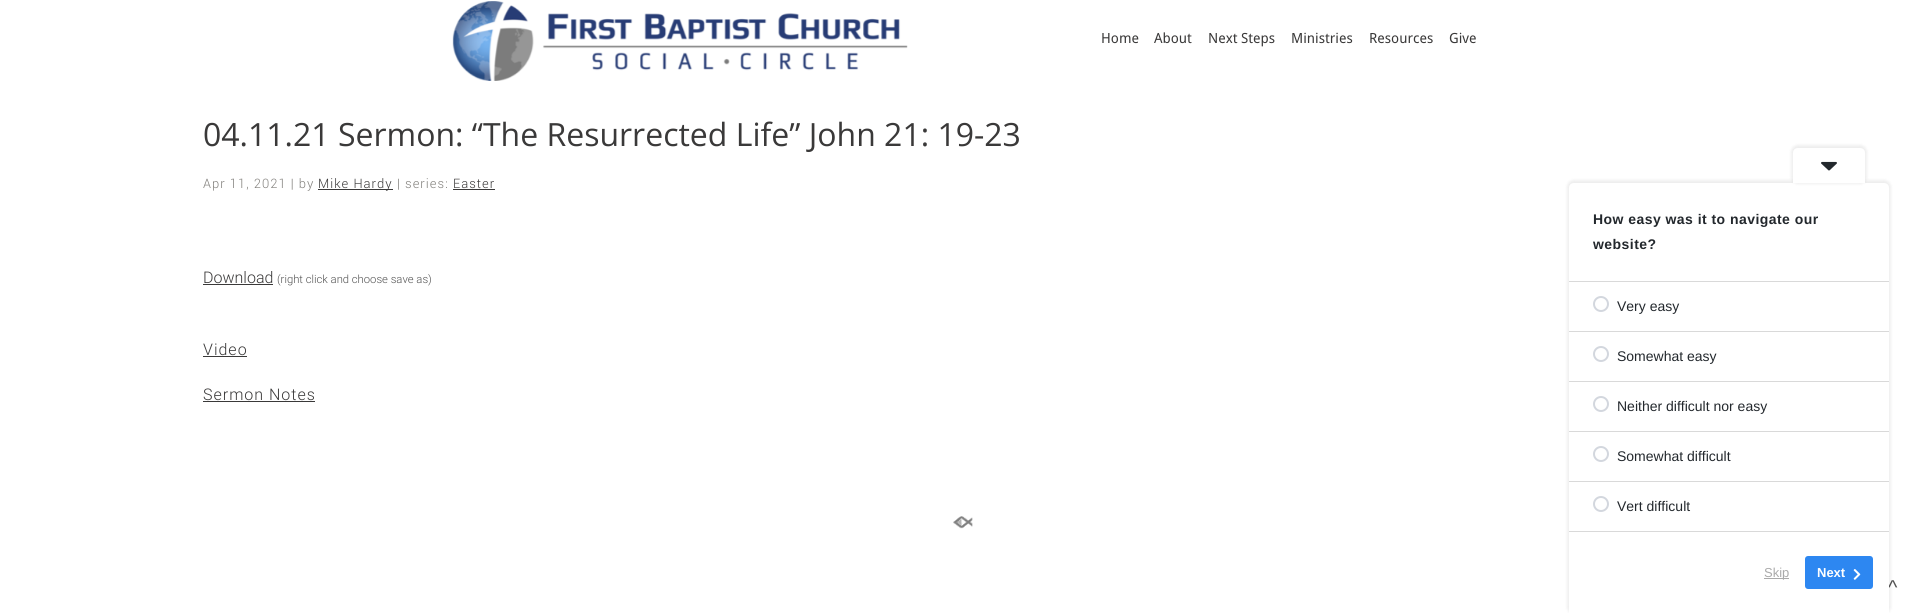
#include <cairo.h>
#include <math.h>
#include <stddef.h>

typedef struct { const char *family; double size; int italic, bold; unsigned color; } style_t;
static cairo_t *ctx;

static void ink(unsigned color) {
    cairo_set_source_rgb(ctx, (color >> 16) / 255.0, (color >> 8 & 255) / 255.0, (color & 255) / 255.0);
}

static void write(double x, double y, const char *s, const style_t *st) {
    cairo_select_font_face(ctx, st->family, st->italic ? CAIRO_FONT_SLANT_ITALIC : CAIRO_FONT_SLANT_NORMAL,
        st->bold ? CAIRO_FONT_WEIGHT_BOLD : CAIRO_FONT_WEIGHT_NORMAL);
    cairo_set_font_size(ctx, st->size);
    ink(st->color);
    cairo_move_to(ctx, x, y);
    cairo_show_text(ctx, s);
}

static void write_spaced(double x, double y, const char *s, double letter, double word) {
    cairo_move_to(ctx, x, y);
    while (*s) {
        char ch[5] = {0};
        int n = 0;
        do ch[n++] = *s++; while ((*s & 0xC0) == 0x80);
        cairo_show_text(ctx, ch);
        cairo_rel_move_to(ctx, letter + word * (*ch == ' '), 0);
    }
}

static void block(double x, double y, double w, double h, unsigned color) {
    ink(color);
    cairo_rectangle(ctx, x, y, w, h);
    cairo_fill(ctx);
}

static void round_path(double x, double y, double w, double h, double r) {
    cairo_new_sub_path(ctx);
    cairo_arc(ctx, x + w - r, y + h - r, r, 0, M_PI / 2);
    cairo_arc(ctx, x + r, y + h - r, r, M_PI / 2, M_PI);
    cairo_arc(ctx, x + r, y + r, r, M_PI, 1.5 * M_PI);
    cairo_arc(ctx, x + w - r, y + r, r, 1.5 * M_PI, 2 * M_PI);
    cairo_close_path(ctx);
}

static void blur_box(double x, double y, double w, double h, double r, double blur, double alpha) {
    cairo_push_group_with_content(ctx, CAIRO_CONTENT_ALPHA);
    cairo_set_operator(ctx, CAIRO_OPERATOR_SOURCE);
    for (int i = 15; i >= -15 && fmin(w, h) + blur * i / 3 > 0; i -= 2) {
        double e = blur * i / 6;
        cairo_set_source_rgba(ctx, 0, 0, 0, alpha * erfc((i - 1) / 8.5) / 2);
        round_path(x - e, y - e, w + 2 * e, h + 2 * e, fmax(0, fmin(r + e + blur * .6, fmin(w, h) / 2 + e)));
        cairo_fill(ctx);
    }
    cairo_pattern_t *soft = cairo_pop_group(ctx);
    cairo_mask(ctx, soft);
    cairo_pattern_destroy(soft);
}

static void paste(const char *path, double x, double y, double w, double h) {
    cairo_surface_t *image = cairo_image_surface_create_from_png(path);
    cairo_save(ctx);
    cairo_set_source_surface(ctx, image, x, y);
    cairo_rectangle(ctx, x, y, w, h);
    cairo_fill(ctx);
    cairo_restore(ctx);
    cairo_surface_destroy(image);
}

static const style_t s1 = {"Droid Sans", 14, 0, 0, 0x3a3939};
static const style_t s2 = {"Open Sans", 32, 0, 0, 0x3a3939};
static const style_t s3 = {"Roboto Light", 16, 0, 0, 0x3a3939};
static const style_t s4 = {"Roboto Light", 11.25, 0, 0, 0x525252};
static const style_t s5 = {"Liberation Sans", 20, 0, 0, 0x525252};
static const style_t s6 = {"Liberation Sans", 14, 0, 0, 0x23282d};
static const style_t s7 = {"Liberation Sans", 13, 0, 0, 0xaaaaaa};
static const style_t s8 = {"Liberation Sans", 13, 0, 1, 0xffffff};

int main(void) {
    cairo_surface_t *surface = cairo_image_surface_create(CAIRO_FORMAT_RGB24, 1929, 613);
    ctx = cairo_create(surface);
    cairo_font_options_t *options = cairo_font_options_create();
    cairo_font_options_set_hint_metrics(options, CAIRO_HINT_METRICS_OFF);
    cairo_font_options_set_hint_style(options, CAIRO_HINT_STYLE_NONE);
    cairo_set_font_options(ctx, options);
    cairo_set_miter_limit(ctx, 4);
    ink(0xffffff);
    cairo_paint(ctx);
    paste("pic1.png", 452, 1, 456, 80);
    write(1101, 43, "Home", &s1);
    write(1154, 43, "About", &s1);
    write(1208, 43, "Next Steps", &s1);
    write(1291, 43, "Ministries", &s1);
    write(1369, 43, "Resources", &s1);
    write(1449, 43, "Give", &s1);
    write(203, 146, "04.11.21 Sermon: “The Resurrected Life” John 21: 19-23", &s2);
    cairo_select_font_face(ctx, "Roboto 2 Light", CAIRO_FONT_SLANT_NORMAL, CAIRO_FONT_WEIGHT_NORMAL);
    cairo_set_font_size(ctx, 13);
    ink(0x817f7b);
    write_spaced(203, 188, "Apr 11, 2021 | by", 1, 0);
    block(318, 189, 75, 1, 0x3a3939);
    write_spaced(318, 188, "Mike Hardy", 1, 0);
    ink(0x817f7b);
    write_spaced(397, 188, "| series:", 1, 0);
    ink(0x3a3939);
    write_spaced(453, 188, "Easter", 1, 0);
    block(453, 189, 42, 1, 0x3a3939);
    write(203, 283, "Download", &s3);
    write(277, 283, "(right click and choose save as)", &s4);
    block(203, 284, 70, 1, 0x3a3939);
    cairo_set_font_size(ctx, 16);
    write_spaced(203, 355, "Video", 1, 0);
    block(203, 356, 44, 1, 0x3a3939);
    write_spaced(203, 400, "Sermon Notes", 1, 0);
    block(203, 401, 112, 1, 0x3a3939);
    paste("pic2.png", 953, 516, 20, 13);
    write(1888, 594, "^", &s5);
    ink(0x000000);
    blur_box(1567, 180, 324, 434, 7, 1.5, 0.07);
    ink(0xffffff);
    cairo_new_path(ctx);
    cairo_move_to(ctx, 1574, 183);
    cairo_line_to(ctx, 1884, 183);
    cairo_curve_to(ctx, 1887, 183, 1889, 185, 1889, 188);
    cairo_line_to(ctx, 1889, 613);
    cairo_line_to(ctx, 1569, 613);
    cairo_line_to(ctx, 1569, 188);
    cairo_curve_to(ctx, 1569, 185, 1571, 183, 1574, 183);
    cairo_close_path(ctx);
    cairo_fill(ctx);
    ink(0x000000);
    blur_box(1791, 145, 76, 39, 7, 1.5, 0.07);
    ink(0xffffff);
    cairo_new_path(ctx);
    cairo_move_to(ctx, 1798, 148);
    cairo_line_to(ctx, 1860, 148);
    cairo_curve_to(ctx, 1863, 148, 1865, 150, 1865, 153);
    cairo_line_to(ctx, 1865, 183);
    cairo_line_to(ctx, 1793, 183);
    cairo_line_to(ctx, 1793, 153);
    cairo_curve_to(ctx, 1793, 150, 1795, 148, 1798, 148);
    cairo_close_path(ctx);
    cairo_fill(ctx);
    paste("pic3.png", 1821, 161, 16, 10);
    cairo_select_font_face(ctx, "Liberation Sans", CAIRO_FONT_SLANT_NORMAL, CAIRO_FONT_WEIGHT_BOLD);
    cairo_set_font_size(ctx, 14);
    ink(0x23282d);
    write_spaced(1593, 224, "How easy was it to navigate our", 0.45, 0);
    write_spaced(1593, 249, "website?", 0.45, 0);
    block(1569, 281, 320, 1, 0xd9d9d9);
    block(1569, 531, 320, 1, 0xd9d9d9);
    block(1569, 331, 320, 1, 0xd9d9d9);
    cairo_new_path(ctx);
    cairo_arc(ctx, 1601, 304, 7, 0, 2 * M_PI);
    ink(0xd3d7de);
    cairo_stroke(ctx);
    write(1617, 311, "Very easy", &s6);
    block(1569, 381, 320, 1, 0xd9d9d9);
    cairo_new_path(ctx);
    cairo_arc(ctx, 1601, 354, 7, 0, 2 * M_PI);
    ink(0xd3d7de);
    cairo_stroke(ctx);
    write(1617, 361, "Somewhat easy", &s6);
    block(1569, 431, 320, 1, 0xd9d9d9);
    cairo_new_path(ctx);
    cairo_arc(ctx, 1601, 404, 7, 0, 2 * M_PI);
    ink(0xd3d7de);
    cairo_stroke(ctx);
    write(1617, 411, "Neither difficult nor easy", &s6);
    block(1569, 481, 320, 1, 0xd9d9d9);
    cairo_new_path(ctx);
    cairo_arc(ctx, 1601, 454, 7, 0, 2 * M_PI);
    ink(0xd3d7de);
    cairo_stroke(ctx);
    write(1617, 461, "Somewhat difficult", &s6);
    cairo_new_path(ctx);
    cairo_arc(ctx, 1601, 504, 7, 0, 2 * M_PI);
    ink(0xd3d7de);
    cairo_stroke(ctx);
    write(1617, 511, "Vert difficult", &s6);
    block(1764, 578, 25, 1, 0xaaaaaa);
    write(1764, 577, "Skip", &s7);
    ink(0x2d87f1);
    round_path(1805, 556, 68, 33, 3);
    cairo_fill(ctx);
    write(1817, 577, "Next", &s8);
    paste("pic4.png", 1853, 569, 8, 11);
    cairo_surface_write_to_png(surface, "screenshot.png");
    cairo_font_options_destroy(options);
    cairo_destroy(ctx);
    cairo_surface_destroy(surface);
    return 0;
}
